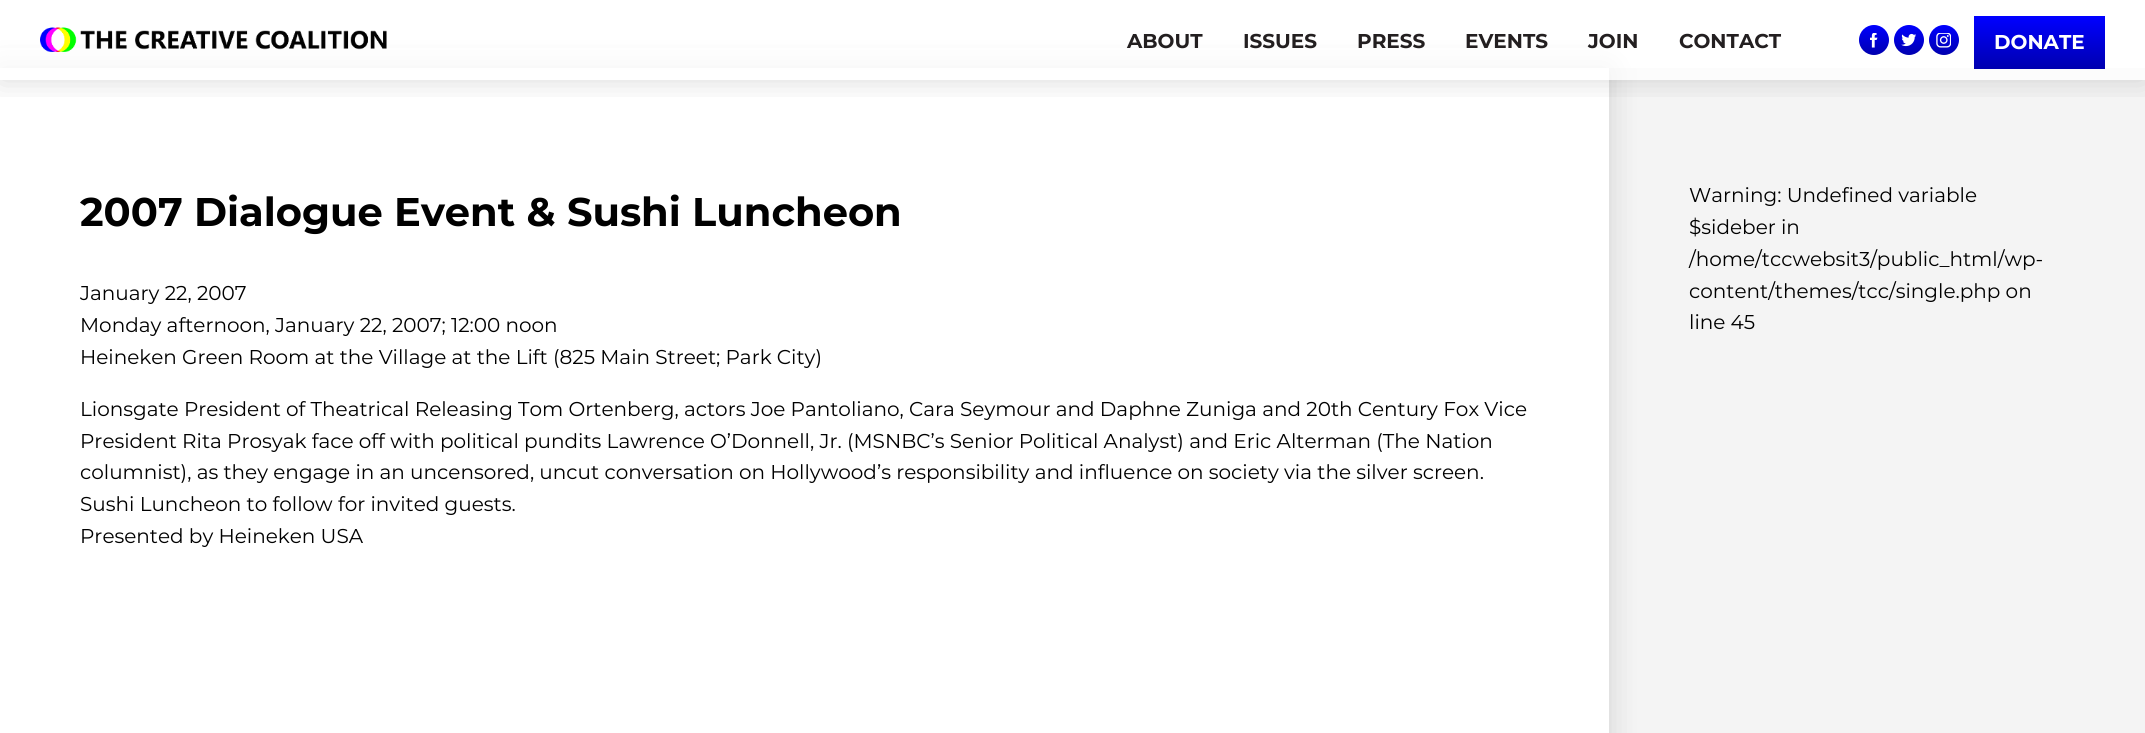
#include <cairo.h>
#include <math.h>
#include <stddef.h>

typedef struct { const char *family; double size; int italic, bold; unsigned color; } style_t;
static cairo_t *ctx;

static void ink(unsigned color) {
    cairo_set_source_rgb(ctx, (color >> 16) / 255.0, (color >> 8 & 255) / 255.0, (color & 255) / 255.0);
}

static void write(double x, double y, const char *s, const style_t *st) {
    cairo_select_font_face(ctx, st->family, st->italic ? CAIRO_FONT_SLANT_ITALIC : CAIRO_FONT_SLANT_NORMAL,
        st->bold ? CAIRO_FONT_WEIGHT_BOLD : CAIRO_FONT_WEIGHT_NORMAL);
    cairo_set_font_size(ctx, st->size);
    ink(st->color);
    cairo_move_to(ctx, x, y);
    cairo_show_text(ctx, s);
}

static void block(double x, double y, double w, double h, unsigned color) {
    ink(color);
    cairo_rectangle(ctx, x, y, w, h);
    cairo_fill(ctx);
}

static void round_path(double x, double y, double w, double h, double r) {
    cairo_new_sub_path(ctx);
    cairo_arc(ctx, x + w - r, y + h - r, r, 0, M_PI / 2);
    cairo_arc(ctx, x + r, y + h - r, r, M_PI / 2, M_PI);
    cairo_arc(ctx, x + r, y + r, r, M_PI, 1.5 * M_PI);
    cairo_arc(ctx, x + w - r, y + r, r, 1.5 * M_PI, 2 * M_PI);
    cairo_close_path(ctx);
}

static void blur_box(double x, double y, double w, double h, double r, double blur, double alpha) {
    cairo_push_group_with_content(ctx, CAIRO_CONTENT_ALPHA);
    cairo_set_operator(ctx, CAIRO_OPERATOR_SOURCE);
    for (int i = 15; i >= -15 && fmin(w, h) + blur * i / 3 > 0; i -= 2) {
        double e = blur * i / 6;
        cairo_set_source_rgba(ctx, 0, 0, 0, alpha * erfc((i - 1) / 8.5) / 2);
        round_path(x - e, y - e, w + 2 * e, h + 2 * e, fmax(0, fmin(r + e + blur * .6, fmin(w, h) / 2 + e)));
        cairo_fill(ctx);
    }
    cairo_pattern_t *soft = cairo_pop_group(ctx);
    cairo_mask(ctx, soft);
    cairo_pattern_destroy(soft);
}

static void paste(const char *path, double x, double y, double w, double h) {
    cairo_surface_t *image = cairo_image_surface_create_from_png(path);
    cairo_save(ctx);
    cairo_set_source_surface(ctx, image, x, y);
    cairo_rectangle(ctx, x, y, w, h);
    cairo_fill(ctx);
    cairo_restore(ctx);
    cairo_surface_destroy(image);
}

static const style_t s1 = {"Montserrat", 20, 0, 1, 0x231f20};
static const style_t s2 = {"Montserrat", 20, 0, 1, 0xffffff};
static const style_t s3 = {"Montserrat", 40, 0, 1, 0x000000};
static const style_t s4 = {"Montserrat", 20, 0, 0, 0x000000};

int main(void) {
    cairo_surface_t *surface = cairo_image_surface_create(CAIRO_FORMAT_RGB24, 2145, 733);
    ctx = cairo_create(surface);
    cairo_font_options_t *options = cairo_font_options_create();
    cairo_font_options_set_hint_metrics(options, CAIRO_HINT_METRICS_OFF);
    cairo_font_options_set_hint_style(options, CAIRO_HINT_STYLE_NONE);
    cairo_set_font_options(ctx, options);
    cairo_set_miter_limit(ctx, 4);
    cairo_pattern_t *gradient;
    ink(0xffffff);
    cairo_paint(ctx);
    block(1609, 68, 536, 665, 0xf4f4f4);
    cairo_save(ctx);
    cairo_rectangle(ctx, 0, 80, 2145, 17);
    cairo_clip(ctx);
    ink(0x000000);
    blur_box(0, 0, 2145, 80, 0, 15.5, 0.15);
    cairo_restore(ctx);
    cairo_save(ctx);
    cairo_set_fill_rule(ctx, CAIRO_FILL_RULE_EVEN_ODD);
    cairo_new_path(ctx);
    cairo_move_to(ctx, 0, 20);
    cairo_line_to(ctx, 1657, 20);
    cairo_line_to(ctx, 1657, 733);
    cairo_line_to(ctx, 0, 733);
    cairo_close_path(ctx);
    cairo_move_to(ctx, 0, 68);
    cairo_line_to(ctx, 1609, 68);
    cairo_line_to(ctx, 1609, 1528);
    cairo_line_to(ctx, 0, 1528);
    cairo_close_path(ctx);
    cairo_clip(ctx);
    ink(0x000000);
    blur_box(0, 68, 1609, 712, 0, 15.5, 0.15);
    cairo_restore(ctx);
    cairo_set_source_rgba(ctx, 1, 1, 1, 0.7);
    cairo_rectangle(ctx, 0, 48, 2145, 32);
    cairo_fill(ctx);
    paste("pic1.png", 40, 27, 347, 25);
    write(1127, 48, "ABOUT", &s1);
    write(1243, 48, "ISSUES", &s1);
    write(1357, 48, "PRESS", &s1);
    write(1465, 48, "EVENTS", &s1);
    write(1588, 48, "JOIN", &s1);
    write(1679, 48, "CONTACT", &s1);
    gradient = cairo_pattern_create_linear(1874, 25, 1874, 55);
    cairo_pattern_add_color_stop_rgba(gradient, 0, 0, 0, 1, 1);
    cairo_pattern_add_color_stop_rgba(gradient, 1, 0, 0, 0.686, 1);
    cairo_set_source(ctx, gradient);
    cairo_pattern_destroy(gradient);
    cairo_new_path(ctx);
    cairo_arc(ctx, 1874, 40, 15, 0, 2 * M_PI);
    cairo_fill(ctx);
    paste("pic2.png", 1870, 33, 8, 15);
    gradient = cairo_pattern_create_linear(1909, 25, 1909, 55);
    cairo_pattern_add_color_stop_rgba(gradient, 0, 0, 0, 1, 1);
    cairo_pattern_add_color_stop_rgba(gradient, 1, 0, 0, 0.686, 1);
    cairo_set_source(ctx, gradient);
    cairo_pattern_destroy(gradient);
    cairo_arc(ctx, 1909, 40, 15, 0, 2 * M_PI);
    cairo_fill(ctx);
    paste("pic3.png", 1901, 33, 15, 14);
    gradient = cairo_pattern_create_linear(1944, 25, 1944, 55);
    cairo_pattern_add_color_stop_rgba(gradient, 0, 0, 0, 1, 1);
    cairo_pattern_add_color_stop_rgba(gradient, 1, 0, 0, 0.686, 1);
    cairo_set_source(ctx, gradient);
    cairo_pattern_destroy(gradient);
    cairo_arc(ctx, 1944, 40, 15, 0, 2 * M_PI);
    cairo_fill(ctx);
    paste("pic4.png", 1936, 33, 15, 15);
    gradient = cairo_pattern_create_linear(2039, 17, 2039, 69);
    cairo_pattern_add_color_stop_rgba(gradient, 0, 0, 0, 1, 1);
    cairo_pattern_add_color_stop_rgba(gradient, 1, 0, 0, 0.686, 1);
    cairo_set_source(ctx, gradient);
    cairo_pattern_destroy(gradient);
    cairo_rectangle(ctx, 1974, 16, 131, 53);
    cairo_fill(ctx);
    write(1994, 49, "DONATE", &s2);
    write(80, 226, "2007 Dialogue Event & Sushi Luncheon", &s3);
    write(80, 300, "January 22, 2007", &s4);
    write(80, 332, "Monday afternoon, January 22, 2007; 12:00 noon", &s4);
    write(80, 364, "Heineken Green Room at the Village at the Lift (825 Main Street; Park City)", &s4);
    write(80, 416, "Lionsgate President of Theatrical Releasing Tom Ortenberg, actors Joe Pantoliano, Cara Seymour and Daphne Zuniga and 20th Century Fox Vice", &s4);
    write(80, 448, "President Rita Prosyak face off with political pundits Lawrence O’Donnell, Jr. (MSNBC’s Senior Political Analyst) and Eric Alterman (The Nation", &s4);
    write(80, 479, "columnist), as they engage in an uncensored, uncut conversation on Hollywood’s responsibility and influence on society via the silver screen.", &s4);
    write(80, 511, "Sushi Luncheon to follow for invited guests.", &s4);
    write(80, 543, "Presented by Heineken USA", &s4);
    write(1689, 202, "Warning: Undefined variable", &s4);
    write(1689, 234, "$sideber in", &s4);
    write(1689, 266, "/home/tccwebsit3/public_html/wp-", &s4);
    write(1689, 298, "content/themes/tcc/single.php on", &s4);
    write(1689, 329, "line 45", &s4);
    cairo_surface_write_to_png(surface, "screenshot.png");
    cairo_font_options_destroy(options);
    cairo_destroy(ctx);
    cairo_surface_destroy(surface);
    return 0;
}
